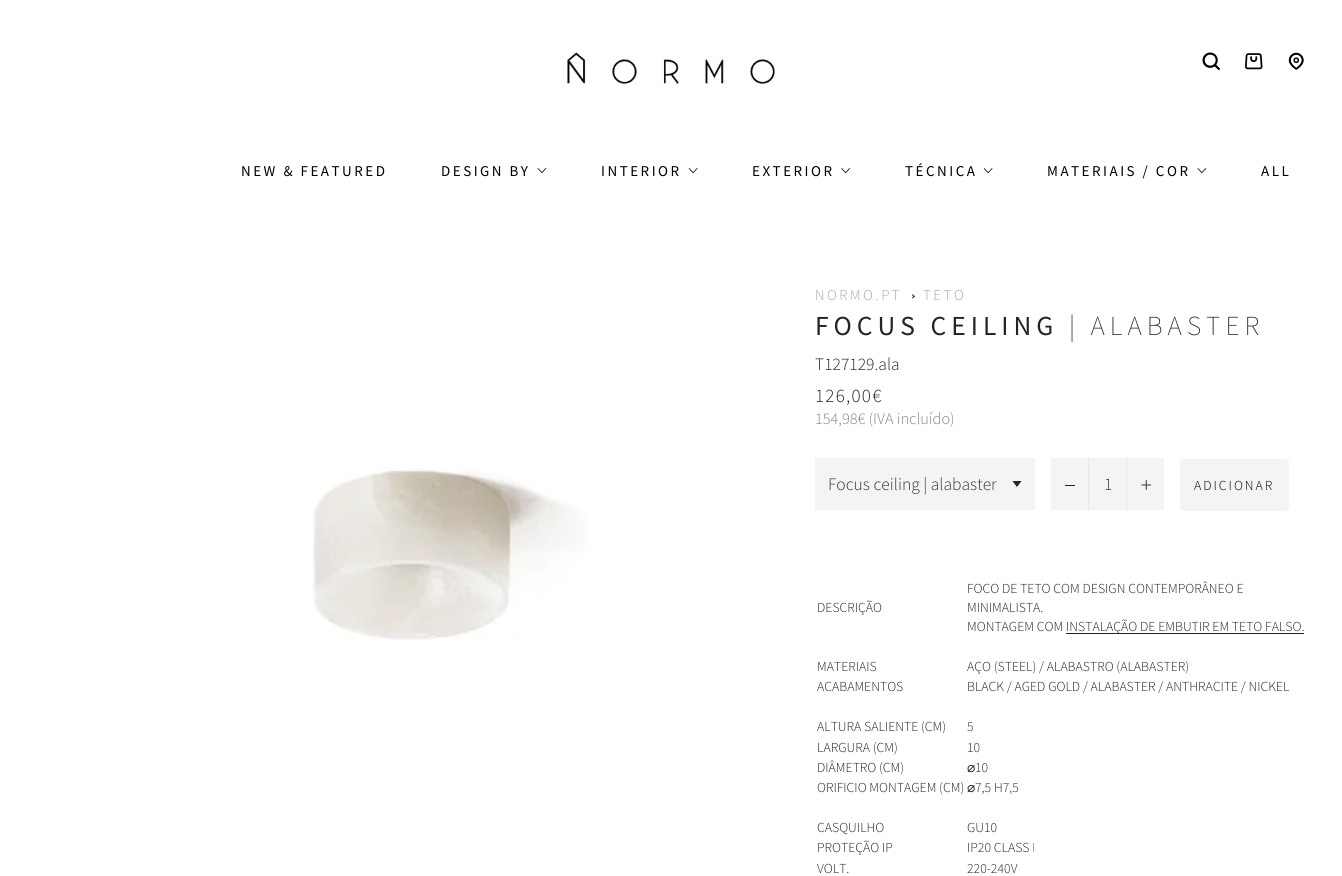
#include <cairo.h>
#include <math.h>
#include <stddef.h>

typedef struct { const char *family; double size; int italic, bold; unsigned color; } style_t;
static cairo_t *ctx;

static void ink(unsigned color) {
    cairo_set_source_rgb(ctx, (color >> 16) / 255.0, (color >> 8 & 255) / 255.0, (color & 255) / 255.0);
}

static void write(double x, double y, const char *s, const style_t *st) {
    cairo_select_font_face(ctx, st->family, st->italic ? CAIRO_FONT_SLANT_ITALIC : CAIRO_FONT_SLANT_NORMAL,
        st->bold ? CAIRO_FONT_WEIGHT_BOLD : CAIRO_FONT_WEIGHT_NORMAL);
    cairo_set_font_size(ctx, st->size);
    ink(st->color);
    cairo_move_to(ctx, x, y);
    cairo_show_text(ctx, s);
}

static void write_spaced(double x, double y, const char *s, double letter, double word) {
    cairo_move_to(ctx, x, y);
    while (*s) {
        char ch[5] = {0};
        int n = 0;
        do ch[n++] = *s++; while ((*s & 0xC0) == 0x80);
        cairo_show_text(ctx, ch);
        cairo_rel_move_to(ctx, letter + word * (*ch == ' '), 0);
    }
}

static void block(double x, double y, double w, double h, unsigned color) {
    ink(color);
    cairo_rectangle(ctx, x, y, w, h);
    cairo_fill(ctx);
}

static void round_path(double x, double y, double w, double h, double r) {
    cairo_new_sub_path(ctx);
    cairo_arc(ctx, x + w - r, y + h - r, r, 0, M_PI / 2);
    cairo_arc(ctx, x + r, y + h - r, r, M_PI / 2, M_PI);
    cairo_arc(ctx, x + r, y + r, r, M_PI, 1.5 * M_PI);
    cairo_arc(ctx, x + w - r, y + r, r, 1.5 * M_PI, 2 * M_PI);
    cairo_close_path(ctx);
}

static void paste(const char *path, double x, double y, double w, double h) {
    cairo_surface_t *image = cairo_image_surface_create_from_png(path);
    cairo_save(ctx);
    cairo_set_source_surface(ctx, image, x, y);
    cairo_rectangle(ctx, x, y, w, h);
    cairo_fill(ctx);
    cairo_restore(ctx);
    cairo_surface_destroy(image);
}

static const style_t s1 = {"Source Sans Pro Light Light", 17.5, 0, 0, 0x242424};
static const style_t s2 = {"Source Sans Pro Light Light", 16.25, 0, 0, 0x828282};
static const style_t s3 = {"Source Sans Pro Light Light", 17.5, 0, 0, 0x333333};
static const style_t s4 = {"Source Sans Pro Light Light", 13.75, 0, 0, 0x242424};
static const style_t s5 = {"DejaVu Sans", 13.75, 0, 0, 0x242424};

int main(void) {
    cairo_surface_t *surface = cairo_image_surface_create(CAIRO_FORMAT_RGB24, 1342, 876);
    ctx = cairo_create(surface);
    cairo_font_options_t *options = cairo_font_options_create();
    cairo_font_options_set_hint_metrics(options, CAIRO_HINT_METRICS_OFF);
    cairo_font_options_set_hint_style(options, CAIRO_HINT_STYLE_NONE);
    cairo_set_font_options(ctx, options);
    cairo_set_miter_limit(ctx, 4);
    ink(0xffffff);
    cairo_paint(ctx);
    paste("pic1.png", 567, 52, 208, 33);
    paste("pic2.png", 1202, 52, 18, 18);
    paste("pic3.png", 1245, 53, 18, 17);
    paste("pic4.png", 1288, 52, 16, 18);
    cairo_select_font_face(ctx, "Source Sans Pro", CAIRO_FONT_SLANT_NORMAL, CAIRO_FONT_WEIGHT_NORMAL);
    cairo_set_font_size(ctx, 15);
    ink(0x000000);
    write_spaced(241, 176, "NEW & FEATURED", 2.5, 0);
    write_spaced(441, 176, "DESIGN BY", 2.5, 0);
    paste("pic5.png", 537, 168, 10, 6);
    write_spaced(601, 176, "INTERIOR", 2.5, 0);
    paste("pic6.png", 688, 168, 10, 6);
    write_spaced(752, 176, "EXTERIOR", 2.5, 0);
    paste("pic7.png", 841, 168, 9, 6);
    write_spaced(905, 176, "TÉCNICA", 2.5, 0);
    paste("pic6.png", 983, 168, 10, 6);
    write_spaced(1047, 176, "MATERIAIS / COR", 2.5, 0);
    paste("pic5.png", 1197, 168, 10, 6);
    write_spaced(1261, 176, "ALL", 2.5, 0);
    paste("pic8.png", 312, 468, 276, 173);
    cairo_select_font_face(ctx, "Source Sans Pro Light Light", CAIRO_FONT_SLANT_NORMAL, CAIRO_FONT_WEIGHT_NORMAL);
    ink(0xa6a6a6);
    write_spaced(815, 300, "NORMO.PT", 2.5, 0);
    ink(0x333333);
    cairo_new_path(ctx);
    cairo_move_to(ctx, 912.5, 294);
    cairo_line_to(ctx, 915, 296.5);
    cairo_line_to(ctx, 914, 297);
    cairo_line_to(ctx, 912, 295);
    cairo_close_path(ctx);
    cairo_fill(ctx);
    cairo_new_path(ctx);
    cairo_move_to(ctx, 914, 295.5);
    cairo_line_to(ctx, 915, 296.5);
    cairo_line_to(ctx, 912.5, 298.5);
    cairo_line_to(ctx, 912, 297.5);
    cairo_close_path(ctx);
    cairo_fill(ctx);
    ink(0xa6a6a6);
    write_spaced(923, 300, "TETO", 2.5, 0);
    cairo_select_font_face(ctx, "Source Sans Pro", CAIRO_FONT_SLANT_NORMAL, CAIRO_FONT_WEIGHT_NORMAL);
    cairo_set_font_size(ctx, 27.5);
    ink(0x242424);
    write_spaced(815, 335, "FOCUS CEILING", 5, 0);
    cairo_select_font_face(ctx, "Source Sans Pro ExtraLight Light", CAIRO_FONT_SLANT_NORMAL, CAIRO_FONT_WEIGHT_NORMAL);
    write_spaced(1069, 335, "| ALABASTER", 5, 0);
    write(815, 370, "T127129.ala", &s1);
    cairo_set_font_size(ctx, 19);
    write_spaced(815, 402, "126,00€", 1.25, 0);
    write(815, 424, "154,98€ (IVA incluído)", &s2);
    block(815, 458, 220, 52, 0xf4f4f4);
    ink(0x242424);
    cairo_new_path(ctx);
    cairo_move_to(ctx, 1012.5, 481);
    cairo_line_to(ctx, 1017, 487);
    cairo_line_to(ctx, 1021.5, 481);
    cairo_close_path(ctx);
    cairo_fill(ctx);
    write(828, 490, "Focus ceiling | alabaster", &s3);
    block(1051, 458, 113, 52, 0xf4f4f4);
    block(1088, 458, 1, 52, 0xe7e7e7);
    block(1065, 485, 10, 1, 0x242424);
    write(1104, 490, "1", &s3);
    block(1126, 458, 1, 52, 0xe7e7e7);
    paste("pic9.png", 1141, 480, 10, 10);
    ink(0xf4f4f4);
    round_path(1180, 459, 109, 52, 4);
    cairo_fill(ctx);
    cairo_set_font_size(ctx, 13.75);
    ink(0x000000);
    write_spaced(1194, 490, "ADICIONAR", 2, 0);
    write(817, 612, "DESCRIÇÃO", &s4);
    write(967, 593, "FOCO DE TETO COM DESIGN CONTEMPORÂNEO E", &s4);
    write(967, 612, "MINIMALISTA.", &s4);
    write(967, 631, "MONTAGEM COM", &s4);
    block(1066, 633, 238, 1, 0x242424);
    write(1066, 631, "INSTALAÇÃO DE EMBUTIR EM TETO FALSO.", &s4);
    write(817, 671, "MATERIAIS", &s4);
    write(967, 671, "AÇO (STEEL) / ALABASTRO (ALABASTER)", &s4);
    write(817, 691, "ACABAMENTOS", &s4);
    write(967, 691, "BLACK / AGED GOLD / ALABASTER / ANTHRACITE / NICKEL", &s4);
    write(817, 731, "ALTURA SALIENTE (CM)", &s4);
    write(967, 731, "5", &s4);
    write(817, 752, "LARGURA (CM)", &s4);
    write(967, 752, "10", &s4);
    write(817, 772, "DIÂMETRO (CM)", &s4);
    write(967, 772, "⌀", &s5);
    write(975, 772, "10", &s4);
    write(817, 792, "ORIFICIO MONTAGEM (CM)", &s4);
    write(967, 792, "⌀", &s5);
    write(975, 792, "7,5 H7,5", &s4);
    write(817, 832, "CASQUILHO", &s4);
    write(967, 832, "GU10", &s4);
    write(817, 852, "PROTEÇÃO IP", &s4);
    write(967, 852, "IP20 CLASS I", &s4);
    write(817, 873, "VOLT.", &s4);
    write(967, 873, "220-240V", &s4);
    cairo_surface_write_to_png(surface, "screenshot.png");
    cairo_font_options_destroy(options);
    cairo_destroy(ctx);
    cairo_surface_destroy(surface);
    return 0;
}
